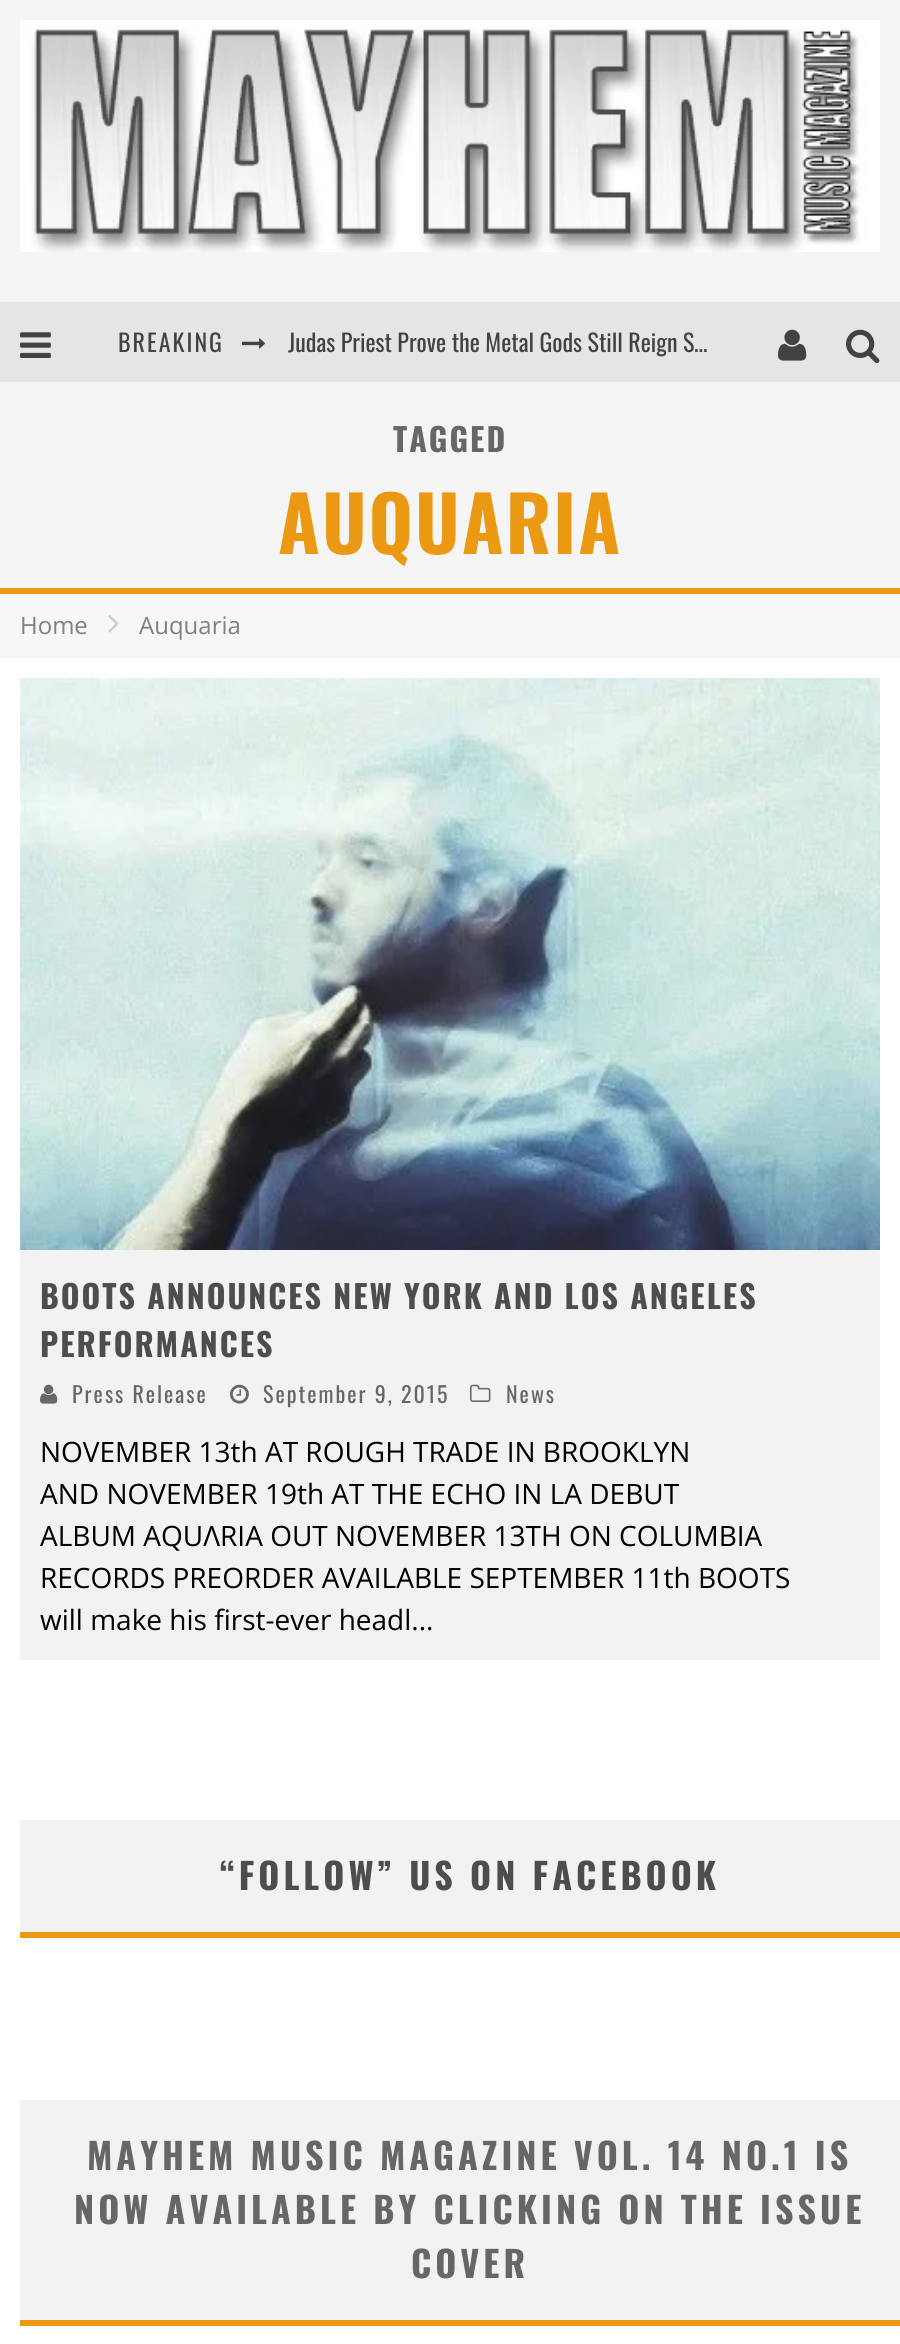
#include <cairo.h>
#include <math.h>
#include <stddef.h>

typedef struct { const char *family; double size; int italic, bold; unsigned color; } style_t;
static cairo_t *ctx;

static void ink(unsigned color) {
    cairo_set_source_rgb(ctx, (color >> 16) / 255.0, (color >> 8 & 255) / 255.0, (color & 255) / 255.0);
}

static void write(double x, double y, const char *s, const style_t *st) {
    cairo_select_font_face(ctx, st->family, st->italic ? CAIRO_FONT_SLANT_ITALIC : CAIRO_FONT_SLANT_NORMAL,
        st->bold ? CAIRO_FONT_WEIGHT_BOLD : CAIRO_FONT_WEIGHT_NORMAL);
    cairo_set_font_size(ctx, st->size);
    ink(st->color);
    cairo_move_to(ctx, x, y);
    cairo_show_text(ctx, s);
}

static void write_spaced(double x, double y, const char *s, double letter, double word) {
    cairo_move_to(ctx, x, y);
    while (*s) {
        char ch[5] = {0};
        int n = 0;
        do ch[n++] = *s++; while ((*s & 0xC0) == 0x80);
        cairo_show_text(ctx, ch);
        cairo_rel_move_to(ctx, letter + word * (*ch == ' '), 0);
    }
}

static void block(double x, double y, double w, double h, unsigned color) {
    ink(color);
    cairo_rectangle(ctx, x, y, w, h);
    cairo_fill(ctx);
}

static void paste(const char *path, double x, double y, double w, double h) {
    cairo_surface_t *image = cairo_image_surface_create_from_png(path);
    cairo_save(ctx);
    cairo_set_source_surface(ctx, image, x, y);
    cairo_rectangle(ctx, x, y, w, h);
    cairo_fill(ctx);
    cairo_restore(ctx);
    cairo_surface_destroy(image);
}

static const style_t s1 = {"Oswald", 24, 0, 0, 0x424242};
static const style_t s2 = {"Open Sans", 24, 0, 0, 0x808080};
static const style_t s3 = {"Open Sans", 28, 0, 0, 0x000000};

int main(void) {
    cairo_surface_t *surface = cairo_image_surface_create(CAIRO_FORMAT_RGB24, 900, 2344);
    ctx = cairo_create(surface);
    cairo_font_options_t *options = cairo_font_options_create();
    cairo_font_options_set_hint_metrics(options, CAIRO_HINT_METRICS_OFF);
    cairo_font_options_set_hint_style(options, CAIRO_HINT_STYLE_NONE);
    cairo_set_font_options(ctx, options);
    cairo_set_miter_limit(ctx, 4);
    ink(0xffffff);
    cairo_paint(ctx);
    block(0, 0, 900, 588, 0xf5f5f5);
    paste("pic1.png", 20, 20, 860, 232);
    block(0, 302, 900, 80, 0xe5e5e5);
    paste("pic2.png", 20, 332, 31, 26);
    cairo_select_font_face(ctx, "Oswald", CAIRO_FONT_SLANT_NORMAL, CAIRO_FONT_WEIGHT_NORMAL);
    cairo_set_font_size(ctx, 24);
    ink(0x424242);
    write_spaced(118, 352, "BREAKING", 2, 0);
    paste("pic3.png", 242, 338, 24, 11);
    cairo_save(ctx);
    cairo_rectangle(ctx, 288, 302, 422, 80);
    cairo_clip(ctx);
    write(288, 352, "Judas Priest Prove the Metal Gods Still Reign S…", &s1);
    cairo_restore(ctx);
    paste("pic4.png", 778, 329, 29, 32);
    paste("pic5.png", 846, 329, 34, 35);
    block(0, 588, 900, 6, 0xeb9812);
    cairo_select_font_face(ctx, "Oswald", CAIRO_FONT_SLANT_NORMAL, CAIRO_FONT_WEIGHT_BOLD);
    cairo_set_font_size(ctx, 32);
    ink(0x666666);
    write_spaced(393, 452, "TAGGED", 2, 0);
    cairo_set_font_size(ctx, 76);
    ink(0xeb9812);
    write_spaced(278, 554, "AUQUARIA", 2, 0);
    block(0, 594, 900, 62, 0xf7f7f7);
    block(0, 656, 900, 2, 0xf3f3f3);
    write(20, 634, "Home", &s2);
    paste("pic6.png", 108, 615, 11, 18);
    write(139, 634, "Auquaria", &s2);
    block(20, 1250, 860, 410, 0xf2f2f2);
    paste("pic7.png", 20, 678, 860, 572);
    cairo_select_font_face(ctx, "Oswald", CAIRO_FONT_SLANT_NORMAL, CAIRO_FONT_WEIGHT_BOLD);
    cairo_set_font_size(ctx, 32);
    ink(0x4d4d4d);
    write_spaced(40, 1309, "BOOTS ANNOUNCES NEW YORK AND LOS ANGELES", 2, 0);
    write_spaced(40, 1357, "PERFORMANCES", 2, 0);
    paste("pic8.png", 40, 1384, 18, 20);
    cairo_select_font_face(ctx, "Oswald", CAIRO_FONT_SLANT_NORMAL, CAIRO_FONT_WEIGHT_NORMAL);
    cairo_set_font_size(ctx, 22);
    ink(0x666666);
    write_spaced(72, 1403, "Press Release", 2, 0);
    paste("pic9.png", 230, 1384, 19, 20);
    write_spaced(263, 1403, "September 9, 2015", 2, 0);
    paste("pic10.png", 470, 1384, 21, 18);
    write_spaced(506, 1403, "News", 2, 0);
    write(40, 1462, "NOVEMBER 13th AT ROUGH TRADE IN BROOKLYN", &s3);
    write(40, 1504, "AND NOVEMBER 19th AT THE ECHO IN LA DEBUT", &s3);
    write(40, 1546, "ALBUM AQUΛRIA OUT NOVEMBER 13TH ON COLUMBIA", &s3);
    write(40, 1588, "RECORDS PREORDER AVAILABLE SEPTEMBER 11th BOOTS", &s3);
    write(40, 1630, "will make his first-ever headl...", &s3);
    block(20, 1820, 880, 112, 0xf2f2f2);
    block(20, 1932, 880, 6, 0xeb9812);
    cairo_select_font_face(ctx, "Oswald", CAIRO_FONT_SLANT_NORMAL, CAIRO_FONT_WEIGHT_BOLD);
    cairo_set_font_size(ctx, 36);
    ink(0x4d4d4d);
    write_spaced(220, 1890, "“FOLLOW” US ON FACEBOOK", 4, 0);
    block(20, 2100, 880, 220, 0xf2f2f2);
    block(20, 2320, 880, 6, 0xeb9812);
    ink(0x666666);
    write_spaced(87, 2170, "MAYHEM MUSIC MAGAZINE VOL. 14 NO.1 IS", 4, 0);
    write_spaced(74, 2224, "NOW AVAILABLE BY CLICKING ON THE ISSUE", 4, 0);
    write_spaced(411, 2278, "COVER", 4, 0);
    cairo_surface_write_to_png(surface, "screenshot.png");
    cairo_font_options_destroy(options);
    cairo_destroy(ctx);
    cairo_surface_destroy(surface);
    return 0;
}
